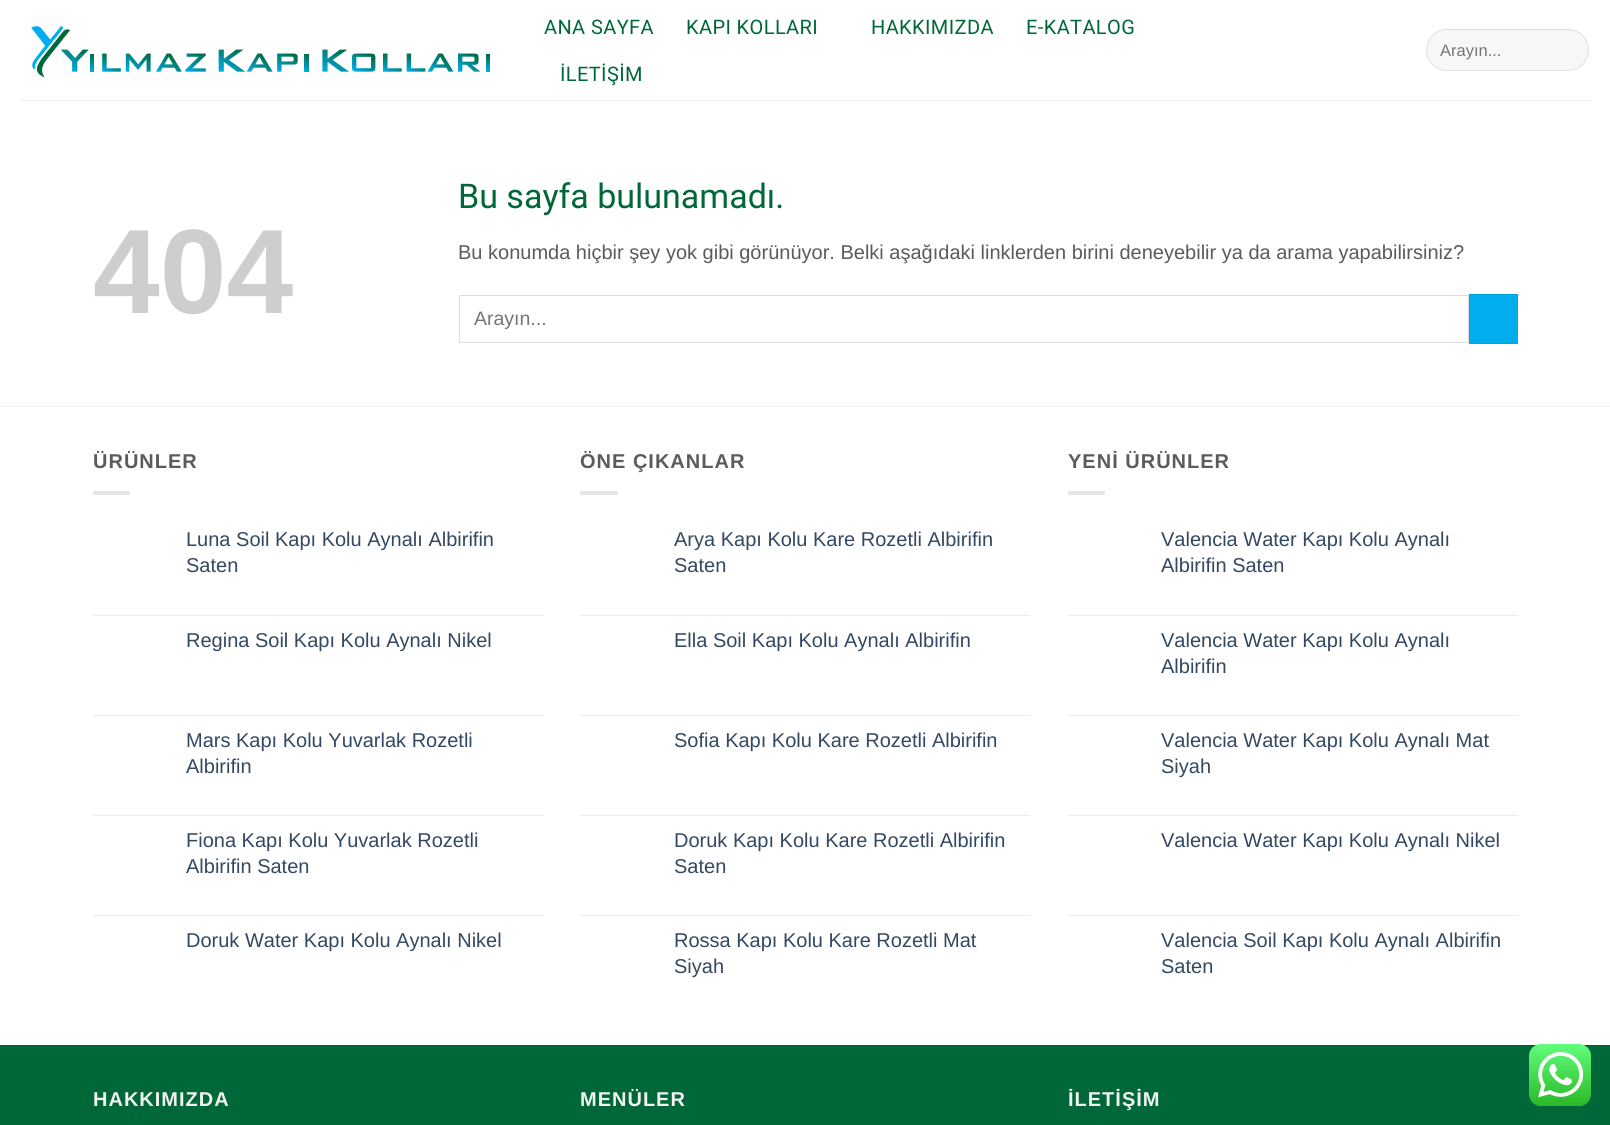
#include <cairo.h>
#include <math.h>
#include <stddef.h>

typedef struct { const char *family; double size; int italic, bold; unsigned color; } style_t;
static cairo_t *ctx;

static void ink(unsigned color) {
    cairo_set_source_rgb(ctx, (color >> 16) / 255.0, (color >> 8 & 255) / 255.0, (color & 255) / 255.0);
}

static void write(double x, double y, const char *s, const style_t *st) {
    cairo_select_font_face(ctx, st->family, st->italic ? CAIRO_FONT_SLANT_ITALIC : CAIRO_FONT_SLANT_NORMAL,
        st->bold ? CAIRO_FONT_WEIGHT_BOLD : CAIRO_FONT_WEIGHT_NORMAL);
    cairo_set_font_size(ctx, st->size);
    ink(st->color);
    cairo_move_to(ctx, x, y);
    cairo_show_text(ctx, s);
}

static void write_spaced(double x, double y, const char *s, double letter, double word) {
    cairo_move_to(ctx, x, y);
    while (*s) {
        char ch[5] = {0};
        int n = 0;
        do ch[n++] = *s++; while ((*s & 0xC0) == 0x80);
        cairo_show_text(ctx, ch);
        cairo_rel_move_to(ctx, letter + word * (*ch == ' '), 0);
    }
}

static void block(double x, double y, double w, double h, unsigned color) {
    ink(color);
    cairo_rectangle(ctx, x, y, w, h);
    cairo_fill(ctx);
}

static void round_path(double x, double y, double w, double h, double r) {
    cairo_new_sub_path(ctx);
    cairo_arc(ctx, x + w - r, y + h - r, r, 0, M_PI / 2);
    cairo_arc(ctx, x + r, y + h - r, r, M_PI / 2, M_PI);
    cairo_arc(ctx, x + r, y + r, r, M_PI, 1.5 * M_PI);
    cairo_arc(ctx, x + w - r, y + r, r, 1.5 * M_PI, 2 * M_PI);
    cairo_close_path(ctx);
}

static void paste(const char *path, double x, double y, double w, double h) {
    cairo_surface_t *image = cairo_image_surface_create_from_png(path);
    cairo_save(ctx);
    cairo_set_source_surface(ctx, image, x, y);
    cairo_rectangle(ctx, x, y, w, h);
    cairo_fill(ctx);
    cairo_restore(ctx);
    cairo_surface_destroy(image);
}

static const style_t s1 = {"Liberation Sans", 16.5, 0, 0, 0x757575};
static const style_t s2 = {"Liberation Sans", 120, 0, 1, 0xcecece};
static const style_t s3 = {"Roboto", 34, 0, 0, 0x006838};
static const style_t s4 = {"Liberation Sans", 20, 0, 0, 0x5b5b5b};
static const style_t s5 = {"Liberation Sans", 19.5, 0, 0, 0x757575};
static const style_t s6 = {"Liberation Sans", 20, 0, 0, 0x334862};

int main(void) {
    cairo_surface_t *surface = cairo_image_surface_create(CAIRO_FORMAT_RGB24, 1610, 1125);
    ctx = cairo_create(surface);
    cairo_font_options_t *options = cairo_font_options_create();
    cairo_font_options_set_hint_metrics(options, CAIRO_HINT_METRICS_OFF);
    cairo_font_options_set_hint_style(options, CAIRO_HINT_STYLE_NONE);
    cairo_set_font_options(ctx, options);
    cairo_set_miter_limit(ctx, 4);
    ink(0xffffff);
    cairo_paint(ctx);
    paste("pic1.png", 31, 26, 459, 52);
    cairo_select_font_face(ctx, "Roboto", CAIRO_FONT_SLANT_NORMAL, CAIRO_FONT_WEIGHT_NORMAL);
    cairo_set_font_size(ctx, 20);
    ink(0x006838);
    write_spaced(544, 34, "ANA SAYFA", 0.4, 0);
    write_spaced(686, 34, "KAPI KOLLARI", 0.4, 0);
    write_spaced(871, 34, "HAKKIMIZDA", 0.4, 0);
    write_spaced(1026, 34, "E-KATALOG", 0.4, 0);
    write_spaced(560, 81, "İLETİŞİM", 0.4, 0);
    ink(0xf7f7f7);
    round_path(1426, 29, 163, 42, 21);
    cairo_fill(ctx);
    round_path(1426.5, 29.5, 162, 41, 20.5);
    cairo_set_source_rgba(ctx, 0, 0, 0, 0.09);
    cairo_set_line_width(ctx, 1);
    cairo_stroke(ctx);
    write(1440, 56, "Arayın...", &s1);
    block(19, 100, 1572, 1, 0xefefef);
    write(93, 313, "404", &s2);
    write(458, 208, "Bu sayfa bulunamadı.", &s3);
    write(458, 259, "Bu konumda hiçbir şey yok gibi görünüyor. Belki aşağıdaki linklerden birini deneyebilir ya da arama yapabilirsiniz?", &s4);
    cairo_rectangle(ctx, 459.5, 295.5, 1009, 47);
    ink(0xdddddd);
    cairo_stroke(ctx);
    write(474, 325, "Arayın...", &s5);
    ink(0x00aeef);
    cairo_rectangle(ctx, 1469.5, 294.5, 48, 49);
    cairo_fill_preserve(ctx);
    ink(0x00a5e3);
    cairo_stroke(ctx);
    block(0, 406, 1610, 1, 0xf2f2f2);
    cairo_select_font_face(ctx, "Liberation Sans", CAIRO_FONT_SLANT_NORMAL, CAIRO_FONT_WEIGHT_BOLD);
    cairo_set_font_size(ctx, 20);
    ink(0x5b5b5b);
    write_spaced(93, 468, "ÜRÜNLER", 1, 0);
    block(93, 491, 37, 4, 0xe6e6e6);
    write(186, 546, "Luna Soil Kapı Kolu Aynalı Albirifin", &s6);
    write(186, 572, "Saten", &s6);
    block(93, 615, 450, 1, 0xececec);
    write(186, 647, "Regina Soil Kapı Kolu Aynalı Nikel", &s6);
    block(93, 715, 450, 1, 0xececec);
    write(186, 747, "Mars Kapı Kolu Yuvarlak Rozetli", &s6);
    write(186, 773, "Albirifin", &s6);
    block(93, 815, 450, 1, 0xececec);
    write(186, 847, "Fiona Kapı Kolu Yuvarlak Rozetli", &s6);
    write(186, 873, "Albirifin Saten", &s6);
    block(93, 915, 450, 1, 0xececec);
    write(186, 947, "Doruk Water Kapı Kolu Aynalı Nikel", &s6);
    cairo_select_font_face(ctx, "Liberation Sans", CAIRO_FONT_SLANT_NORMAL, CAIRO_FONT_WEIGHT_BOLD);
    ink(0x5b5b5b);
    write_spaced(580, 468, "ÖNE ÇIKANLAR", 1, 0);
    block(580, 491, 38, 4, 0xe6e6e6);
    write(674, 546, "Arya Kapı Kolu Kare Rozetli Albirifin", &s6);
    write(674, 572, "Saten", &s6);
    block(580, 615, 450, 1, 0xececec);
    write(674, 647, "Ella Soil Kapı Kolu Aynalı Albirifin", &s6);
    block(580, 715, 450, 1, 0xececec);
    write(674, 747, "Sofia Kapı Kolu Kare Rozetli Albirifin", &s6);
    block(580, 815, 450, 1, 0xececec);
    write(674, 847, "Doruk Kapı Kolu Kare Rozetli Albirifin", &s6);
    write(674, 873, "Saten", &s6);
    block(580, 915, 450, 1, 0xececec);
    write(674, 947, "Rossa Kapı Kolu Kare Rozetli Mat", &s6);
    write(674, 973, "Siyah", &s6);
    cairo_select_font_face(ctx, "Liberation Sans", CAIRO_FONT_SLANT_NORMAL, CAIRO_FONT_WEIGHT_BOLD);
    ink(0x5b5b5b);
    write_spaced(1068, 468, "YENİ ÜRÜNLER", 1, 0);
    block(1068, 491, 37, 4, 0xe6e6e6);
    write(1161, 546, "Valencia Water Kapı Kolu Aynalı", &s6);
    write(1161, 572, "Albirifin Saten", &s6);
    block(1068, 615, 450, 1, 0xececec);
    write(1161, 647, "Valencia Water Kapı Kolu Aynalı", &s6);
    write(1161, 673, "Albirifin", &s6);
    block(1068, 715, 450, 1, 0xececec);
    write(1161, 747, "Valencia Water Kapı Kolu Aynalı Mat", &s6);
    write(1161, 773, "Siyah", &s6);
    block(1068, 815, 450, 1, 0xececec);
    write(1161, 847, "Valencia Water Kapı Kolu Aynalı Nikel", &s6);
    block(1068, 915, 450, 1, 0xececec);
    write(1161, 947, "Valencia Soil Kapı Kolu Aynalı Albirifin", &s6);
    write(1161, 973, "Saten", &s6);
    block(0, 1046, 1610, 79, 0x006838);
    block(0, 1045, 1610, 1, 0x006335);
    cairo_select_font_face(ctx, "Liberation Sans", CAIRO_FONT_SLANT_NORMAL, CAIRO_FONT_WEIGHT_BOLD);
    ink(0xf1f1f1);
    write_spaced(93, 1106, "HAKKIMIZDA", 1, 0);
    write_spaced(580, 1106, "MENÜLER", 1, 0);
    write_spaced(1068, 1106, "İLETİŞİM", 1, 0);
    paste("pic2.png", 1529, 1044, 62, 62);
    cairo_surface_write_to_png(surface, "screenshot.png");
    cairo_font_options_destroy(options);
    cairo_destroy(ctx);
    cairo_surface_destroy(surface);
    return 0;
}
